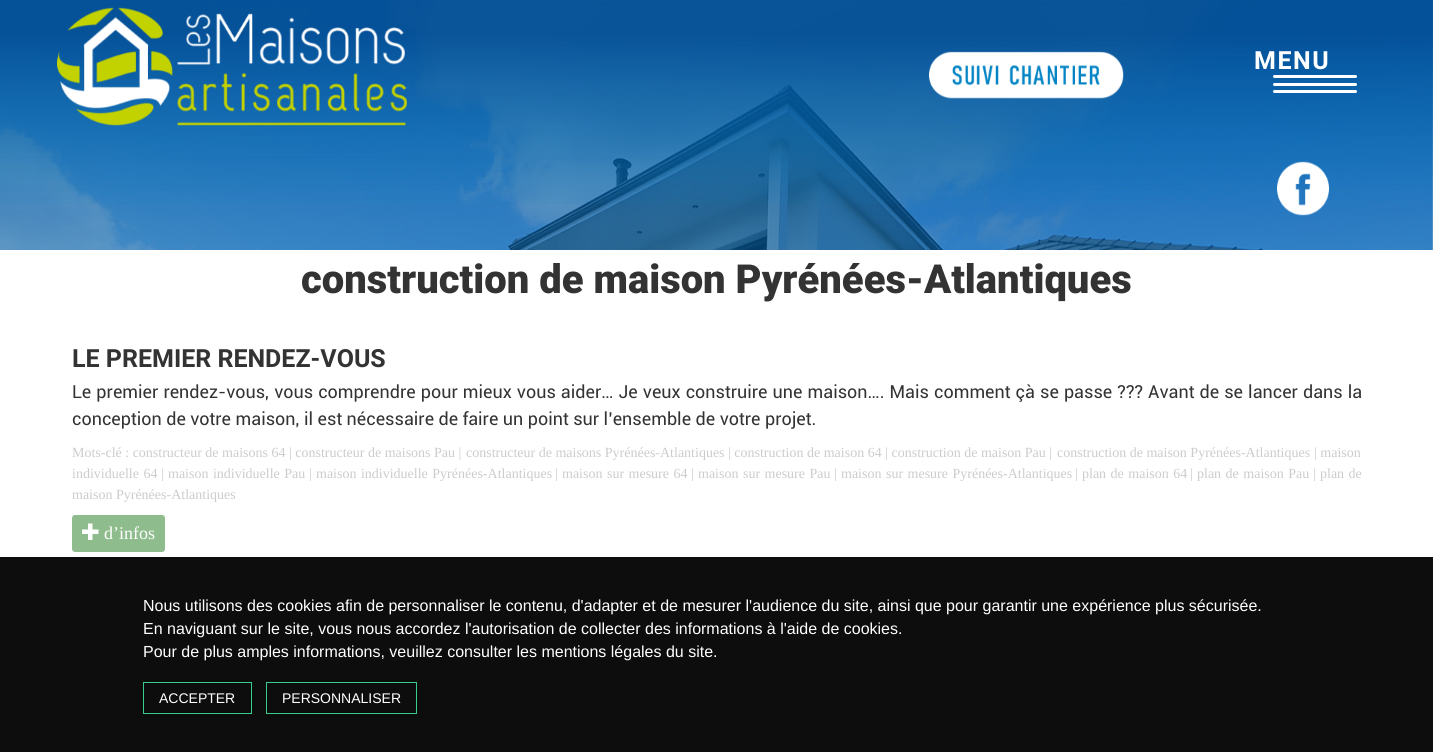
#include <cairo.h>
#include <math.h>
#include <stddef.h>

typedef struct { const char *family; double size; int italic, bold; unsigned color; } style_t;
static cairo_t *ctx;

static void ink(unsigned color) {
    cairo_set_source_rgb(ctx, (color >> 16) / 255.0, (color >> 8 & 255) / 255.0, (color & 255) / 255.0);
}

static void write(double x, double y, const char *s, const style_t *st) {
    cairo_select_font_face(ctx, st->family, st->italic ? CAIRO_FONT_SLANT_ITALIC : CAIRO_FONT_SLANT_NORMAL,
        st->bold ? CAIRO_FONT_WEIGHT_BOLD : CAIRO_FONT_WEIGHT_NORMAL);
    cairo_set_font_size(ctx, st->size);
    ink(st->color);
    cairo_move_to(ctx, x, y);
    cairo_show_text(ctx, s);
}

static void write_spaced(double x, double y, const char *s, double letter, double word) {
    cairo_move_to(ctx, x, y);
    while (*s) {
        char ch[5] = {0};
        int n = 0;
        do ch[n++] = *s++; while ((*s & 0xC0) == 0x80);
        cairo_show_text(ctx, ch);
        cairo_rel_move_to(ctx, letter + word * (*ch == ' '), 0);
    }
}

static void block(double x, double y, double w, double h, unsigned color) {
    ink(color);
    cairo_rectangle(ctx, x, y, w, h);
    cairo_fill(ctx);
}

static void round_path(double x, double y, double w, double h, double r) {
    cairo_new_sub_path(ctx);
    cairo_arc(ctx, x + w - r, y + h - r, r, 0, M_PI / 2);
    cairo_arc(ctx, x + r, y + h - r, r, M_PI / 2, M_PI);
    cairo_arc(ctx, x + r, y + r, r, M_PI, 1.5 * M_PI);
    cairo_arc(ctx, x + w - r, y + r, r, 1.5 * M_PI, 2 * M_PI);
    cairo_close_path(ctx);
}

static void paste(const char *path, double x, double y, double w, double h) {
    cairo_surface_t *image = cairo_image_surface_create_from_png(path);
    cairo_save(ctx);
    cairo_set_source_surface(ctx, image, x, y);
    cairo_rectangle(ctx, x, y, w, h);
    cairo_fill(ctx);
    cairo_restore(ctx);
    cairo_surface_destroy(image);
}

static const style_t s1 = {"Roboto Black", 40, 0, 0, 0x333333};
static const style_t s2 = {"Roboto", 25, 0, 1, 0x333333};
static const style_t s3 = {"Roboto", 18, 0, 0, 0x333333};
static const style_t s4 = {"Liberation Serif", 14, 0, 0, 0xcccccc};
static const style_t s5 = {"Liberation Serif", 18, 0, 0, 0xffffff};
static const style_t s6 = {"Liberation Sans", 16, 0, 0, 0xffffff};
static const style_t s7 = {"Liberation Sans", 14, 0, 0, 0xffffff};

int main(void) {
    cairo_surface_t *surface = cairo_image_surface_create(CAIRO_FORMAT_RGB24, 1433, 752);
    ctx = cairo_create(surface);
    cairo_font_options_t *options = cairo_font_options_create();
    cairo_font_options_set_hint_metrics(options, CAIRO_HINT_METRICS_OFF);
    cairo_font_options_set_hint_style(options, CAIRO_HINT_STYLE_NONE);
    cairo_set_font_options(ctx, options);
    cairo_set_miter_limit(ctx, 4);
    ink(0xffffff);
    cairo_paint(ctx);
    block(0, 557, 1433, 195, 0x0d0d0d);
    paste("pic1.png", 0, 0, 1433, 250);
    paste("pic3.png", 0, 0, 1433, 204);
    paste("pic2.png", 929, 51, 195, 48);
    paste("pic4.png", 57, 7, 350, 119);
    cairo_select_font_face(ctx, "Roboto", CAIRO_FONT_SLANT_NORMAL, CAIRO_FONT_WEIGHT_BOLD);
    cairo_set_font_size(ctx, 25);
    ink(0xffffff);
    write_spaced(1254, 69, "MENU", 1.5, 0);
    round_path(1273, 75, 84, 3, 1.5);
    cairo_fill(ctx);
    round_path(1273, 83, 84, 3, 1.5);
    cairo_fill(ctx);
    round_path(1273, 90, 84, 3, 1.5);
    cairo_fill(ctx);
    paste("pic5.png", 1277, 161, 52, 55);
    write(301, 293, "construction de maison Pyrénées-Atlantiques", &s1);
    write(72, 367, "LE PREMIER RENDEZ-VOUS", &s2);
    cairo_select_font_face(ctx, "Roboto", CAIRO_FONT_SLANT_NORMAL, CAIRO_FONT_WEIGHT_NORMAL);
    cairo_set_font_size(ctx, 18);
    write_spaced(72, 398, "Le premier rendez-vous, vous comprendre pour mieux vous aider… Je veux construire une maison…. Mais comment çà se passe ?\077? Avant de se lancer dans la", 0, 0.6);
    write(72, 425, "conception de votre maison, il est nécessaire de faire un point sur l’ensemble de votre projet.", &s3);
    write(72, 457, "Mots-clé : constructeur de maisons 64 | constructeur de maisons Pau |", &s4);
    write(466, 457, "constructeur de maisons Pyrénées-Atlantiques", &s4);
    write(728, 457, "| construction de maison 64 | construction de maison Pau |", &s4);
    write(1057, 457, "construction de maison Pyrénées-Atlantiques", &s4);
    write(1314, 457, "| maison", &s4);
    write_spaced(72, 478, "individuelle 64", 0, 1);
    write(161, 478, "|", &s4);
    write_spaced(168, 478, "maison individuelle Pau", 0, 1);
    write(309, 478, "|", &s4);
    write_spaced(316, 478, "maison individuelle Pyrénées-Atlantiques", 0, 1);
    write(555, 478, "|", &s4);
    write_spaced(562, 478, "maison sur mesure 64", 0, 1);
    write(691, 478, "|", &s4);
    write_spaced(698, 478, "maison sur mesure Pau", 0, 1);
    write(834, 478, "|", &s4);
    write_spaced(841, 478, "maison sur mesure Pyrénées-Atlantiques", 0, 1);
    write(1075, 478, "|", &s4);
    write_spaced(1082, 478, "plan de maison 64", 0, 1);
    write(1190, 478, "|", &s4);
    write_spaced(1197, 478, "plan de maison Pau", 0, 1);
    write(1313, 478, "|", &s4);
    write_spaced(1320, 478, "plan de", 0, 1);
    write(72, 499, "maison Pyrénées-Atlantiques", &s4);
    ink(0x8fbc8c);
    round_path(72, 515, 93, 37, 3);
    cairo_fill(ctx);
    paste("pic6.png", 82, 523, 17, 17);
    write(104, 539, "d’infos", &s5);
    write(143, 611, "Nous utilisons des cookies afin de personnaliser le contenu, d'adapter et de mesurer l'audience du site, ainsi que pour garantir une expérience plus sécurisée.", &s6);
    write(143, 634, "En naviguant sur le site, vous nous accordez l'autorisation de collecter des informations à l'aide de cookies.", &s6);
    write(143, 657, "Pour de plus amples informations, veuillez consulter les mentions légales du site.", &s6);
    cairo_rectangle(ctx, 143.5, 682.5, 108, 31);
    ink(0x37cd8f);
    cairo_set_line_width(ctx, 1);
    cairo_stroke(ctx);
    write(159, 703, "ACCEPTER", &s7);
    cairo_rectangle(ctx, 266.5, 682.5, 150, 31);
    ink(0x37cd8f);
    cairo_stroke(ctx);
    write(282, 703, "PERSONNALISER", &s7);
    cairo_surface_write_to_png(surface, "screenshot.png");
    cairo_font_options_destroy(options);
    cairo_destroy(ctx);
    cairo_surface_destroy(surface);
    return 0;
}
